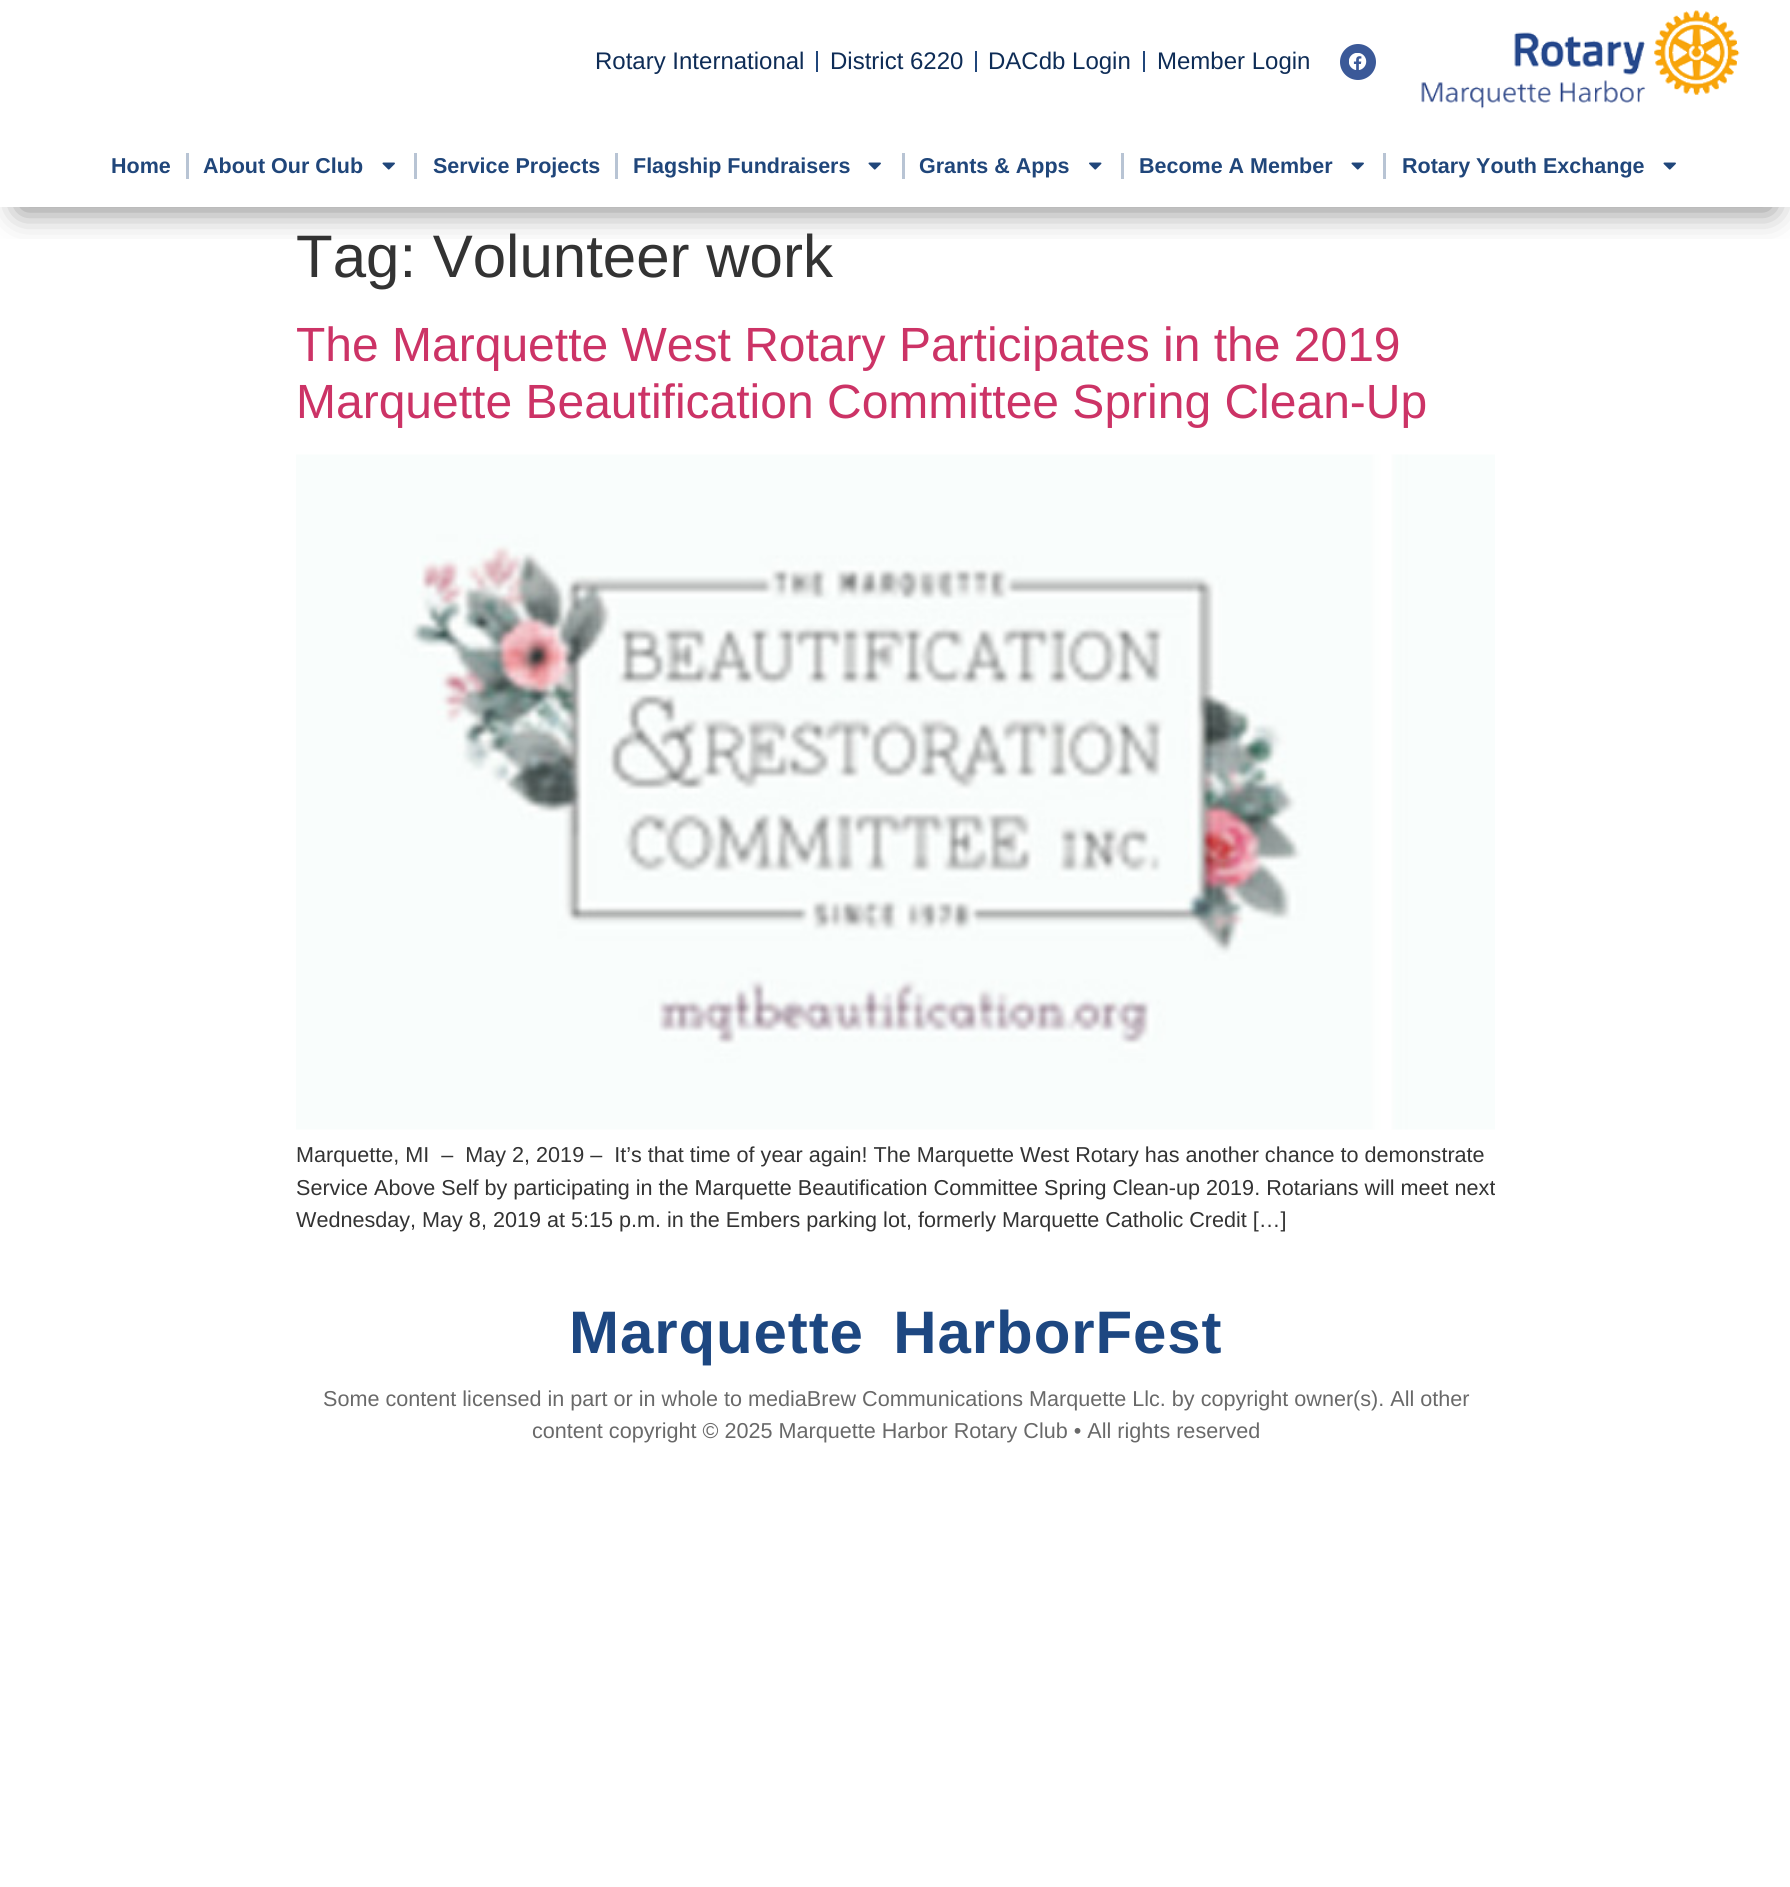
#include <cairo.h>
#include <math.h>
#include <stddef.h>

typedef struct { const char *family; double size; int italic, bold; unsigned color; } style_t;
static cairo_t *ctx;

static void ink(unsigned color) {
    cairo_set_source_rgb(ctx, (color >> 16) / 255.0, (color >> 8 & 255) / 255.0, (color & 255) / 255.0);
}

static void write(double x, double y, const char *s, const style_t *st) {
    cairo_select_font_face(ctx, st->family, st->italic ? CAIRO_FONT_SLANT_ITALIC : CAIRO_FONT_SLANT_NORMAL,
        st->bold ? CAIRO_FONT_WEIGHT_BOLD : CAIRO_FONT_WEIGHT_NORMAL);
    cairo_set_font_size(ctx, st->size);
    ink(st->color);
    cairo_move_to(ctx, x, y);
    cairo_show_text(ctx, s);
}

static void write_spaced(double x, double y, const char *s, double letter, double word) {
    cairo_move_to(ctx, x, y);
    while (*s) {
        char ch[5] = {0};
        int n = 0;
        do ch[n++] = *s++; while ((*s & 0xC0) == 0x80);
        cairo_show_text(ctx, ch);
        cairo_rel_move_to(ctx, letter + word * (*ch == ' '), 0);
    }
}

static void block(double x, double y, double w, double h, unsigned color) {
    ink(color);
    cairo_rectangle(ctx, x, y, w, h);
    cairo_fill(ctx);
}

static void round_path(double x, double y, double w, double h, double r) {
    cairo_new_sub_path(ctx);
    cairo_arc(ctx, x + w - r, y + h - r, r, 0, M_PI / 2);
    cairo_arc(ctx, x + r, y + h - r, r, M_PI / 2, M_PI);
    cairo_arc(ctx, x + r, y + r, r, M_PI, 1.5 * M_PI);
    cairo_arc(ctx, x + w - r, y + r, r, 1.5 * M_PI, 2 * M_PI);
    cairo_close_path(ctx);
}

static void blur_box(double x, double y, double w, double h, double r, double blur, double alpha) {
    cairo_push_group_with_content(ctx, CAIRO_CONTENT_ALPHA);
    cairo_set_operator(ctx, CAIRO_OPERATOR_SOURCE);
    for (int i = 15; i >= -15 && fmin(w, h) + blur * i / 3 > 0; i -= 2) {
        double e = blur * i / 6;
        cairo_set_source_rgba(ctx, 0, 0, 0, alpha * erfc((i - 1) / 8.5) / 2);
        round_path(x - e, y - e, w + 2 * e, h + 2 * e, fmax(0, fmin(r + e + blur * .6, fmin(w, h) / 2 + e)));
        cairo_fill(ctx);
    }
    cairo_pattern_t *soft = cairo_pop_group(ctx);
    cairo_mask(ctx, soft);
    cairo_pattern_destroy(soft);
}

static void paste(const char *path, double x, double y, double w, double h) {
    cairo_surface_t *image = cairo_image_surface_create_from_png(path);
    cairo_save(ctx);
    cairo_set_source_surface(ctx, image, x, y);
    cairo_rectangle(ctx, x, y, w, h);
    cairo_fill(ctx);
    cairo_restore(ctx);
    cairo_surface_destroy(image);
}

static const style_t s1 = {"Liberation Sans", 24, 0, 0, 0x0e2c56};
static const style_t s2 = {"Liberation Sans", 21.5, 0, 1, 0x20467a};
static const style_t s3 = {"Liberation Sans", 60, 0, 0, 0x333333};
static const style_t s4 = {"Liberation Sans", 48, 0, 0, 0xcc3366};
static const style_t s5 = {"Liberation Sans", 21.6, 0, 0, 0x333333};
static const style_t s6 = {"Liberation Sans", 21.6, 0, 0, 0x696969};

int main(void) {
    cairo_surface_t *surface = cairo_image_surface_create(CAIRO_FORMAT_RGB24, 1790, 1887);
    ctx = cairo_create(surface);
    cairo_font_options_t *options = cairo_font_options_create();
    cairo_font_options_set_hint_metrics(options, CAIRO_HINT_METRICS_OFF);
    cairo_font_options_set_hint_style(options, CAIRO_HINT_STYLE_NONE);
    cairo_set_font_options(ctx, options);
    cairo_set_miter_limit(ctx, 4);
    ink(0xffffff);
    cairo_paint(ctx);
    write(595, 69, "Rotary International", &s1);
    block(816, 51, 2, 21, 0x20467a);
    write(830, 69, "District 6220", &s1);
    block(975, 51, 2, 21, 0x20467a);
    write(988, 69, "DACdb Login", &s1);
    block(1143, 51, 2, 21, 0x20467a);
    write(1157, 69, "Member Login", &s1);
    ink(0x3b5998);
    cairo_new_path(ctx);
    cairo_arc(ctx, 1358, 62, 18, 0, 2 * M_PI);
    cairo_fill(ctx);
    paste("pic1.png", 1349, 53, 18, 17);
    paste("pic2.png", 1421, 10, 319, 99);
    cairo_save(ctx);
    cairo_rectangle(ctx, 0, 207, 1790, 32);
    cairo_clip(ctx);
    ink(0x000000);
    blur_box(20, 165, 1752, 45, 0, 16.5, 0.5);
    cairo_restore(ctx);
    write(111, 173, "Home", &s2);
    block(186, 153, 3, 26, 0xb8c4d4);
    write(203, 173, "About Our Club", &s2);
    paste("pic3.png", 382, 162, 13, 8);
    block(414, 153, 3, 26, 0xb8c4d4);
    write(433, 173, "Service Projects", &s2);
    block(615, 153, 3, 26, 0xb8c4d4);
    write(633, 173, "Flagship Fundraisers", &s2);
    paste("pic3.png", 868, 162, 13, 8);
    block(902, 153, 3, 26, 0xb8c4d4);
    write(919, 173, "Grants & Apps", &s2);
    paste("pic4.png", 1089, 162, 13, 8);
    block(1121, 153, 3, 26, 0xb8c4d4);
    write(1139, 173, "Become A Member", &s2);
    paste("pic3.png", 1351, 162, 13, 8);
    block(1383, 153, 3, 26, 0xb8c4d4);
    write(1402, 173, "Rotary Youth Exchange", &s2);
    paste("pic3.png", 1663, 162, 13, 8);
    write(296, 277, "Tag: Volunteer work", &s3);
    write(296, 361, "The Marquette West Rotary Participates in the 2019", &s4);
    write(296, 418, "Marquette Beautification Committee Spring Clean-Up", &s4);
    paste("pic5.png", 296, 454, 1199, 676);
    write(296, 1162, "Marquette, MI  –  May 2, 2019 –  It’s that time of year again! The Marquette West Rotary has another chance to demonstrate", &s5);
    write(296, 1195, "Service Above Self by participating in the Marquette Beautification Committee Spring Clean-up 2019. Rotarians will meet next", &s5);
    write(296, 1227, "Wednesday, May 8, 2019 at 5:15 p.m. in the Embers parking lot, formerly Marquette Catholic Credit […]", &s5);
    cairo_select_font_face(ctx, "Liberation Sans", CAIRO_FONT_SLANT_NORMAL, CAIRO_FONT_WEIGHT_BOLD);
    cairo_set_font_size(ctx, 60);
    ink(0x1d4781);
    write_spaced(569, 1353, "Marquette HarborFest", 0.9, 12);
    write(323, 1406, "Some content licensed in part or in whole to mediaBrew Communications Marquette Llc. by copyright owner(s). All other", &s6);
    write(532, 1438, "content copyright © 2025 Marquette Harbor Rotary Club • All rights reserved", &s6);
    cairo_surface_write_to_png(surface, "screenshot.png");
    cairo_font_options_destroy(options);
    cairo_destroy(ctx);
    cairo_surface_destroy(surface);
    return 0;
}
